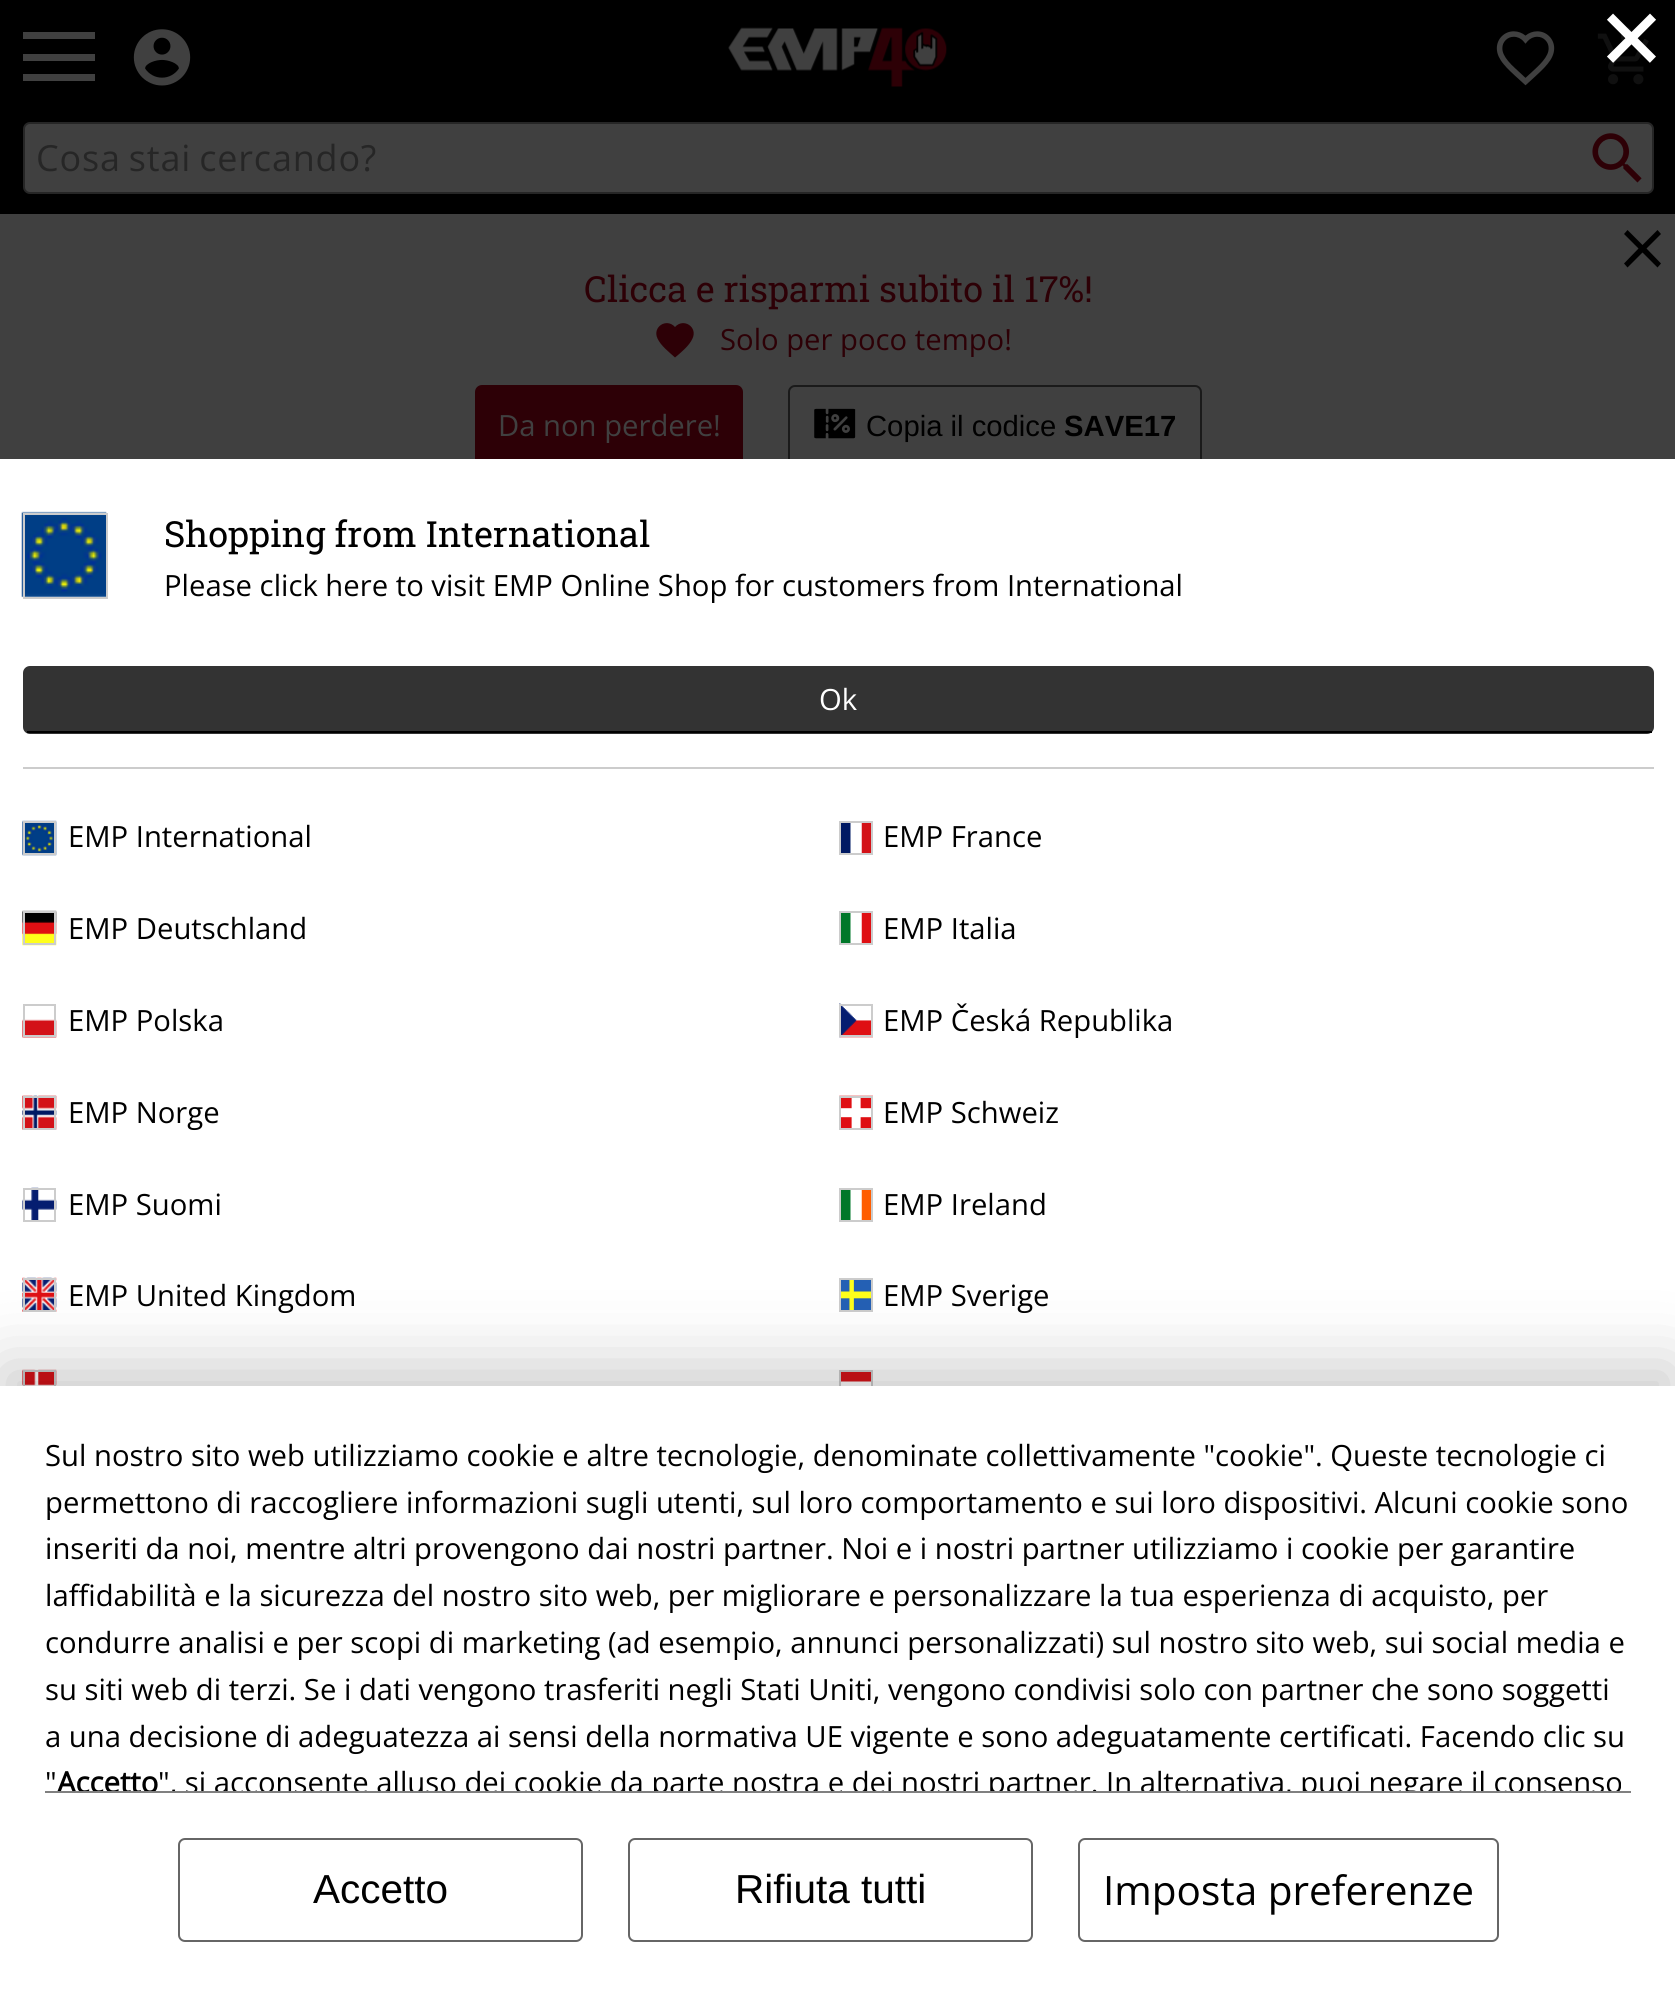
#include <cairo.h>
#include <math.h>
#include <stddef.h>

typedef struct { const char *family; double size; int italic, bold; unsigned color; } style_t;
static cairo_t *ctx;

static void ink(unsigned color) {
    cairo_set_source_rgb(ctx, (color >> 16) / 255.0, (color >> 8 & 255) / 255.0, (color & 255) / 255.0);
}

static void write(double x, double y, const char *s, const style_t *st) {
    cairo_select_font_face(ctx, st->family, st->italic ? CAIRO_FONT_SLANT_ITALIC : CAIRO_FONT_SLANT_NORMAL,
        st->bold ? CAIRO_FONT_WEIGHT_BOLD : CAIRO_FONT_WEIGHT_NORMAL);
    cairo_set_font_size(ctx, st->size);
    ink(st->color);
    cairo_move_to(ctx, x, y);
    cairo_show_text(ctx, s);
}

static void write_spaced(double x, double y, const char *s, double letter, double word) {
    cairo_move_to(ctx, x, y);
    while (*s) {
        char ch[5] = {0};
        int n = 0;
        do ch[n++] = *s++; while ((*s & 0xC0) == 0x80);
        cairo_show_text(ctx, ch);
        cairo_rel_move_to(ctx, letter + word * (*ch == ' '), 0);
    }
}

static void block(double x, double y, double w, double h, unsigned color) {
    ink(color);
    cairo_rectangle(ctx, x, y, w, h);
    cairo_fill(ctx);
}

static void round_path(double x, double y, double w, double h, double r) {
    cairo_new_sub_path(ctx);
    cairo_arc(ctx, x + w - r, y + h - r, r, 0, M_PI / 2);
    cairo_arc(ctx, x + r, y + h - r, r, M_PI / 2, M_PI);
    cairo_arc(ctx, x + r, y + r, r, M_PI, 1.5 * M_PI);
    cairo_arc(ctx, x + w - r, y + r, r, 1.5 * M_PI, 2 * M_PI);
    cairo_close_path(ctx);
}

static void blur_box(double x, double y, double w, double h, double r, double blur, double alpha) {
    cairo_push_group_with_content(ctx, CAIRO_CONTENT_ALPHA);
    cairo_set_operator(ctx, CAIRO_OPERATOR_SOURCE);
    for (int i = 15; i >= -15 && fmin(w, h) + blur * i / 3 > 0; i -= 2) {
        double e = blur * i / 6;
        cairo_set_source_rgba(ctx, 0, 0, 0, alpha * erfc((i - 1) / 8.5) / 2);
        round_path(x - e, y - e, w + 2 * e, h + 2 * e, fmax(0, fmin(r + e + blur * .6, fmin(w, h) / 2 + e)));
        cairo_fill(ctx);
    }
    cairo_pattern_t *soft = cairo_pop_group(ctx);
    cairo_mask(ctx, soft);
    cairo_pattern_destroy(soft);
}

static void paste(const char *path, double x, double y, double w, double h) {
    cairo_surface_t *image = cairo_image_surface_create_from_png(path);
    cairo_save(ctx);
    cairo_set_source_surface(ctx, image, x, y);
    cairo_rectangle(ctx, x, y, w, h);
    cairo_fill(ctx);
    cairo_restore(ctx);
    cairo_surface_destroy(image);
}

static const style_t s1 = {"Open Sans", 22, 0, 1, 0x101010};
static const style_t s2 = {"DejaVu Sans Mono", 108, 0, 0, 0xffffff};
static const style_t s3 = {"Roboto Slab", 36, 0, 0, 0x000000};
static const style_t s4 = {"Open Sans", 29.25, 0, 0, 0x000000};
static const style_t s5 = {"Open Sans", 29.25, 0, 0, 0xffffff};
static const style_t s6 = {"Roboto Slab", 36, 0, 0, 0x2d0006};
static const style_t s7 = {"Open Sans", 29.25, 0, 0, 0x2d0006};
static const style_t s8 = {"Open Sans", 29.25, 0, 0, 0x404040};
static const style_t s9 = {"Liberation Sans", 29.25, 0, 0, 0x000000};
static const style_t s10 = {"Liberation Sans", 29.25, 0, 1, 0x000000};
static const style_t s11 = {"Open Sans", 29.25, 0, 1, 0x000000};
static const style_t s12 = {"Liberation Sans", 40.5, 0, 0, 0x000000};
static const style_t s13 = {"Open Sans", 40.5, 0, 0, 0x000000};

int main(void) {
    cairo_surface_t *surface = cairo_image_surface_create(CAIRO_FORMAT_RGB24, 1675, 2009);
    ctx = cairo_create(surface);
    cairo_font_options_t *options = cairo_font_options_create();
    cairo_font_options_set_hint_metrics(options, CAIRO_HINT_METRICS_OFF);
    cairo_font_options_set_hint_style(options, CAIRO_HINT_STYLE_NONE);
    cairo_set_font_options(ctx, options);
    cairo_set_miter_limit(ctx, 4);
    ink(0x404040);
    cairo_paint(ctx);
    block(0, 0, 1675, 214, 0x000000);
    paste("pic19.png", 1597, 33, 52, 52);
    write(1620, 44, "0", &s1);
    write(1599, 72, "×", &s2);
    ink(0x2d0006);
    round_path(475, 385, 268, 85, 7);
    cairo_fill(ctx);
    round_path(789, 386, 412, 83, 6);
    ink(0x1a1a1a);
    cairo_stroke(ctx);
    block(0, 459, 1675, 927, 0xffffff);
    paste("pic1.png", 21, 511, 86, 87);
    cairo_rectangle(ctx, 24, 514, 83, 84);
    ink(0xcccccc);
    cairo_stroke(ctx);
    write(164, 547, "Shopping from International", &s3);
    write(164, 596, "Please click here to visit EMP Online Shop for customers from International", &s4);
    ink(0x333333);
    round_path(23, 666, 1631, 68, 7);
    cairo_fill(ctx);
    block(27, 731, 1625, 2, 0x000000);
    write(819, 710, "Ok", &s5);
    block(23, 767, 1631, 2, 0xcccccc);
    paste("pic2.png", 22, 820, 35, 36);
    cairo_rectangle(ctx, 24, 822, 31, 32);
    cairo_stroke(ctx);
    write(68, 847, "EMP International", &s4);
    paste("pic3.png", 841, 823, 30, 30);
    cairo_rectangle(ctx, 840, 822, 32, 32);
    ink(0xcccccc);
    cairo_stroke(ctx);
    write(883, 847, "EMP France", &s4);
    paste("pic4.png", 22, 910, 35, 36);
    cairo_rectangle(ctx, 24, 912, 31, 32);
    ink(0xcccccc);
    cairo_stroke(ctx);
    write(68, 939, "EMP Deutschland", &s4);
    paste("pic5.png", 841, 913, 30, 30);
    cairo_rectangle(ctx, 840, 912, 32, 32);
    ink(0xcccccc);
    cairo_stroke(ctx);
    write(883, 939, "EMP Italia", &s4);
    paste("pic6.png", 22, 1019, 35, 19);
    cairo_rectangle(ctx, 24, 1005, 31, 31);
    ink(0xcccccc);
    cairo_stroke(ctx);
    write(68, 1031, "EMP Polska", &s4);
    paste("pic7.png", 839, 1003, 34, 35);
    cairo_rectangle(ctx, 840, 1005, 32, 31);
    ink(0xcccccc);
    cairo_stroke(ctx);
    write(883, 1031, "EMP Česká Republika", &s4);
    paste("pic8.png", 22, 1095, 35, 35);
    cairo_rectangle(ctx, 24, 1097, 31, 32);
    ink(0xcccccc);
    cairo_stroke(ctx);
    write(68, 1123, "EMP Norge", &s4);
    paste("pic9.png", 839, 1095, 34, 33);
    cairo_rectangle(ctx, 840, 1097, 32, 32);
    ink(0xcccccc);
    cairo_stroke(ctx);
    write(883, 1123, "EMP Schweiz", &s4);
    paste("pic10.png", 22, 1187, 35, 35);
    cairo_rectangle(ctx, 24, 1189, 31, 32);
    ink(0xcccccc);
    cairo_stroke(ctx);
    write(68, 1215, "EMP Suomi", &s4);
    paste("pic11.png", 841, 1190, 30, 30);
    cairo_rectangle(ctx, 840, 1189, 32, 32);
    ink(0xcccccc);
    cairo_stroke(ctx);
    write(883, 1215, "EMP Ireland", &s4);
    paste("pic12.png", 22, 1277, 35, 35);
    cairo_rectangle(ctx, 24, 1279, 31, 32);
    ink(0xcccccc);
    cairo_stroke(ctx);
    write(68, 1306, "EMP United Kingdom", &s4);
    paste("pic13.png", 841, 1280, 30, 30);
    cairo_rectangle(ctx, 840, 1279, 32, 32);
    ink(0xcccccc);
    cairo_stroke(ctx);
    write(883, 1306, "EMP Sverige", &s4);
    paste("pic14.png", 22, 1369, 35, 17);
    cairo_rectangle(ctx, 24, 1371, 31, 32);
    ink(0xcccccc);
    cairo_stroke(ctx);
    paste("pic15.png", 841, 1372, 30, 14);
    cairo_rectangle(ctx, 840, 1371, 32, 32);
    cairo_stroke(ctx);
    block(23, 32, 72, 7, 0x404040);
    block(23, 54, 72, 7, 0x404040);
    block(23, 74, 72, 7, 0x404040);
    paste("pic16.png", 133, 29, 58, 57);
    paste("pic17.png", 728, 27, 220, 60);
    paste("pic18.png", 1496, 31, 59, 55);
    round_path(24, 123, 1629, 70, 6);
    cairo_fill_preserve(ctx);
    ink(0x262626);
    cairo_stroke(ctx);
    cairo_set_font_size(ctx, 36);
    write_spaced(36, 171, "Cosa stai cercando?", 0.8, -2);
    paste("pic20.png", 1592, 133, 50, 50);
    ink(0x000000);
    cairo_new_path(ctx);
    cairo_move_to(ctx, 1661, 234);
    cairo_line_to(ctx, 1657.5, 230);
    cairo_line_to(ctx, 1642.5, 245);
    cairo_line_to(ctx, 1627.5, 230);
    cairo_line_to(ctx, 1624, 234);
    cairo_line_to(ctx, 1638.5, 248.5);
    cairo_line_to(ctx, 1624, 263.5);
    cairo_line_to(ctx, 1627.5, 267.5);
    cairo_line_to(ctx, 1642.5, 252.5);
    cairo_line_to(ctx, 1657.5, 267.5);
    cairo_line_to(ctx, 1661, 263.5);
    cairo_line_to(ctx, 1646.5, 248.5);
    cairo_close_path(ctx);
    cairo_fill(ctx);
    write(584, 302, "Clicca e risparmi subito il 17%!", &s6);
    cairo_new_path(ctx);
    cairo_move_to(ctx, 675, 357.5);
    cairo_curve_to(ctx, 669, 352, 661, 346, 657.5, 338.5);
    cairo_curve_to(ctx, 652, 327, 666.5, 317.5, 675, 327);
    cairo_curve_to(ctx, 683.5, 317.5, 698, 327, 692.5, 338.5);
    cairo_curve_to(ctx, 689.5, 345.5, 681, 352.5, 675, 357.5);
    cairo_close_path(ctx);
    cairo_fill(ctx);
    write(720, 350, "Solo per poco tempo!", &s7);
    write(498, 436, "Da non perdere!", &s8);
    paste("pic21.png", 814, 408, 42, 31);
    write(866, 436, "Copia il codice", &s9);
    write(1064, 436, "SAVE17", &s10);
    ink(0x000000);
    blur_box(0, 1364, 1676, 623, 0, 34, 0.2);
    block(0, 1386, 1675, 623, 0xffffff);
    block(45, 1791, 1586, 2, 0x808080);
    write(45, 1466, "Sul nostro sito web utilizziamo cookie e altre tecnologie, denominate collettivamente \"cookie\". Queste tecnologie ci", &s4);
    write(45, 1513, "permettono di raccogliere informazioni sugli utenti, sul loro comportamento e sui loro dispositivi. Alcuni cookie sono", &s4);
    write(45, 1559, "inseriti da noi, mentre altri provengono dai nostri partner. Noi e i nostri partner utilizziamo i cookie per garantire", &s4);
    write(45, 1606, "laffidabilità e la sicurezza del nostro sito web, per migliorare e personalizzare la tua esperienza di acquisto, per", &s4);
    write(45, 1653, "condurre analisi e per scopi di marketing (ad esempio, annunci personalizzati) sul nostro sito web, sui social media e", &s4);
    write(45, 1700, "su siti web di terzi. Se i dati vengono trasferiti negli Stati Uniti, vengono condivisi solo con partner che sono soggetti", &s4);
    write(45, 1747, "a una decisione di adeguatezza ai sensi della normativa UE vigente e sono adeguatamente certificati. Facendo clic su", &s4);
    write(45, 1793, "\"", &s4);
    cairo_save(ctx);
    cairo_rectangle(ctx, 45, 1431, 1586, 360);
    cairo_clip(ctx);
    write(57, 1793, "Accetto", &s11);
    write(158, 1793, "\", si acconsente alluso dei cookie da parte nostra e dei nostri partner. In alternativa, puoi negare il consenso", &s4);
    cairo_restore(ctx);
    round_path(179, 1839, 403, 102, 6);
    ink(0x666666);
    cairo_stroke(ctx);
    write(313, 1903, "Accetto", &s12);
    round_path(629, 1839, 403, 102, 6);
    ink(0x666666);
    cairo_stroke(ctx);
    write(735, 1903, "Rifiuta tutti", &s12);
    round_path(1079, 1839, 419, 102, 6);
    ink(0x666666);
    cairo_stroke(ctx);
    write(1103, 1905, "Imposta preferenze", &s13);
    cairo_surface_write_to_png(surface, "screenshot.png");
    cairo_font_options_destroy(options);
    cairo_destroy(ctx);
    cairo_surface_destroy(surface);
    return 0;
}
